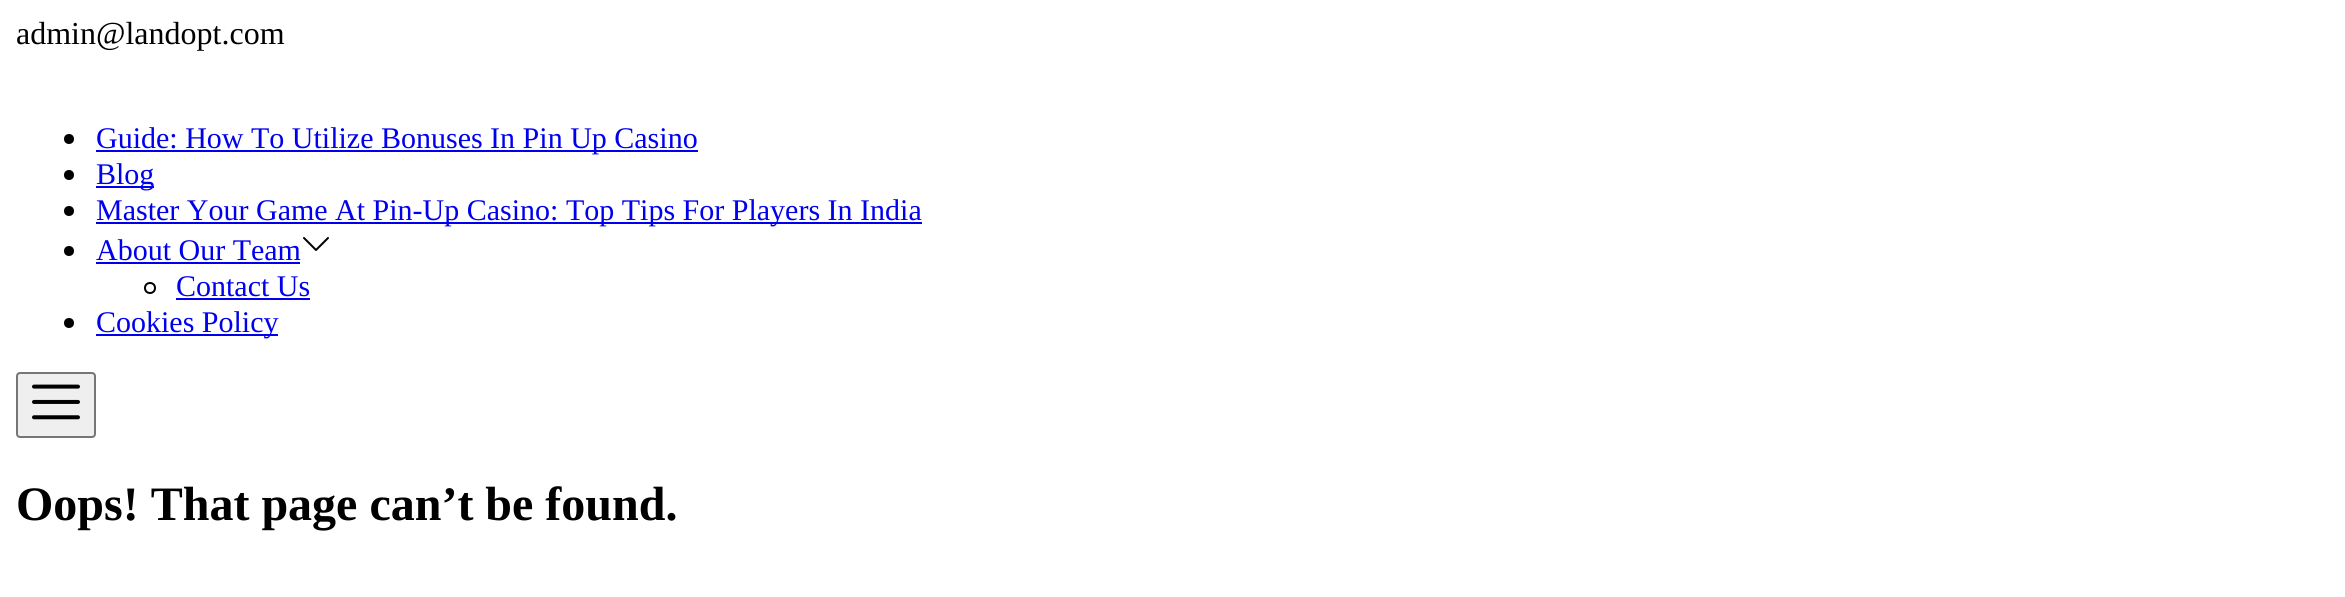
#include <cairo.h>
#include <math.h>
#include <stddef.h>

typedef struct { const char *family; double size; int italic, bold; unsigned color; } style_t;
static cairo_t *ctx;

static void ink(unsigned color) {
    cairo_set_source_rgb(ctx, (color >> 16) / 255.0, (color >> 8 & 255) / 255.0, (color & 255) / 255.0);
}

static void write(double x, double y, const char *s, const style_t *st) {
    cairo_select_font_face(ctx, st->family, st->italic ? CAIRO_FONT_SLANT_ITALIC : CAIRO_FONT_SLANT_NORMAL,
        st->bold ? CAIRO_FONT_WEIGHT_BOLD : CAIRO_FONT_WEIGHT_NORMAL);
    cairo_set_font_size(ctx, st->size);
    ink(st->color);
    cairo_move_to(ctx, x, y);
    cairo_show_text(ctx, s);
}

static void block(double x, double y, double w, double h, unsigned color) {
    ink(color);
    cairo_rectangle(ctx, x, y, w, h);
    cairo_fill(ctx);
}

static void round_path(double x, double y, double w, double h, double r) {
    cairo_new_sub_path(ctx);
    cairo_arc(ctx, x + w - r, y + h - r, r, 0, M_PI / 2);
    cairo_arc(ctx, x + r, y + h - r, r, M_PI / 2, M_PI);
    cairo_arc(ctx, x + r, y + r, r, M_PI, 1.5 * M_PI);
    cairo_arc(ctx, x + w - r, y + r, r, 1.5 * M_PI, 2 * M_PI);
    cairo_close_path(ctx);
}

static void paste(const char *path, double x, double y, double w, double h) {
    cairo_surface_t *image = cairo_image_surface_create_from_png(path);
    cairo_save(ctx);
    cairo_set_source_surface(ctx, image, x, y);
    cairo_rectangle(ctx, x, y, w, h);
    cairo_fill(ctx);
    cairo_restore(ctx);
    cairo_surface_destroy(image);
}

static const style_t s1 = {"Liberation Serif", 32, 0, 0, 0x000000};
static const style_t s2 = {"Liberation Serif", 30, 0, 0, 0x0000ee};
static const style_t s3 = {"Liberation Serif", 48, 0, 1, 0x000000};

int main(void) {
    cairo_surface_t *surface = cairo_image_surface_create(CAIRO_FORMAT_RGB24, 2345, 597);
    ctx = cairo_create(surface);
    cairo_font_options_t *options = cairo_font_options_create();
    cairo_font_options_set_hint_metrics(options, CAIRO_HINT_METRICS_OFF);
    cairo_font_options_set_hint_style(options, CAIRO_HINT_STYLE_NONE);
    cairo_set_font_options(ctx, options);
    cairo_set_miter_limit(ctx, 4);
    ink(0xffffff);
    cairo_paint(ctx);
    write(16, 44, "admin@landopt.com", &s1);
    cairo_new_path(ctx);
    cairo_arc(ctx, 69, 139, 5, 0, 2 * M_PI);
    cairo_fill(ctx);
    block(96, 150, 602, 2, 0x0000ee);
    write(96, 148, "Guide: How To Utilize Bonuses In Pin Up Casino", &s2);
    ink(0x000000);
    cairo_new_path(ctx);
    cairo_arc(ctx, 69, 175, 5, 0, 2 * M_PI);
    cairo_fill(ctx);
    block(96, 186, 58, 2, 0x0000ee);
    write(96, 184, "Blog", &s2);
    ink(0x000000);
    cairo_new_path(ctx);
    cairo_arc(ctx, 69, 211, 5, 0, 2 * M_PI);
    cairo_fill(ctx);
    block(96, 222, 826, 2, 0x0000ee);
    write(96, 220, "Master Your Game At Pin-Up Casino: Top Tips For Players In India", &s2);
    ink(0x000000);
    cairo_new_path(ctx);
    cairo_arc(ctx, 69, 251, 5, 0, 2 * M_PI);
    cairo_fill(ctx);
    write(96, 260, "About Our Team", &s2);
    block(96, 262, 204, 2, 0x0000ee);
    paste("pic1.png", 303, 237, 26, 14);
    cairo_arc(ctx, 150, 288, 5, 0, 2 * M_PI);
    ink(0x000000);
    cairo_stroke(ctx);
    write(176, 296, "Contact Us", &s2);
    block(176, 298, 134, 2, 0x0000ee);
    ink(0x000000);
    cairo_new_path(ctx);
    cairo_arc(ctx, 69, 323, 5, 0, 2 * M_PI);
    cairo_fill(ctx);
    block(96, 334, 182, 2, 0x0000ee);
    write(96, 332, "Cookies Policy", &s2);
    ink(0xefefef);
    round_path(17, 373, 78, 64, 3);
    cairo_fill_preserve(ctx);
    ink(0x767676);
    cairo_stroke(ctx);
    paste("pic2.png", 32, 384, 48, 36);
    write(16, 520, "Oops! That page can’t be found.", &s3);
    cairo_surface_write_to_png(surface, "screenshot.png");
    cairo_font_options_destroy(options);
    cairo_destroy(ctx);
    cairo_surface_destroy(surface);
    return 0;
}
